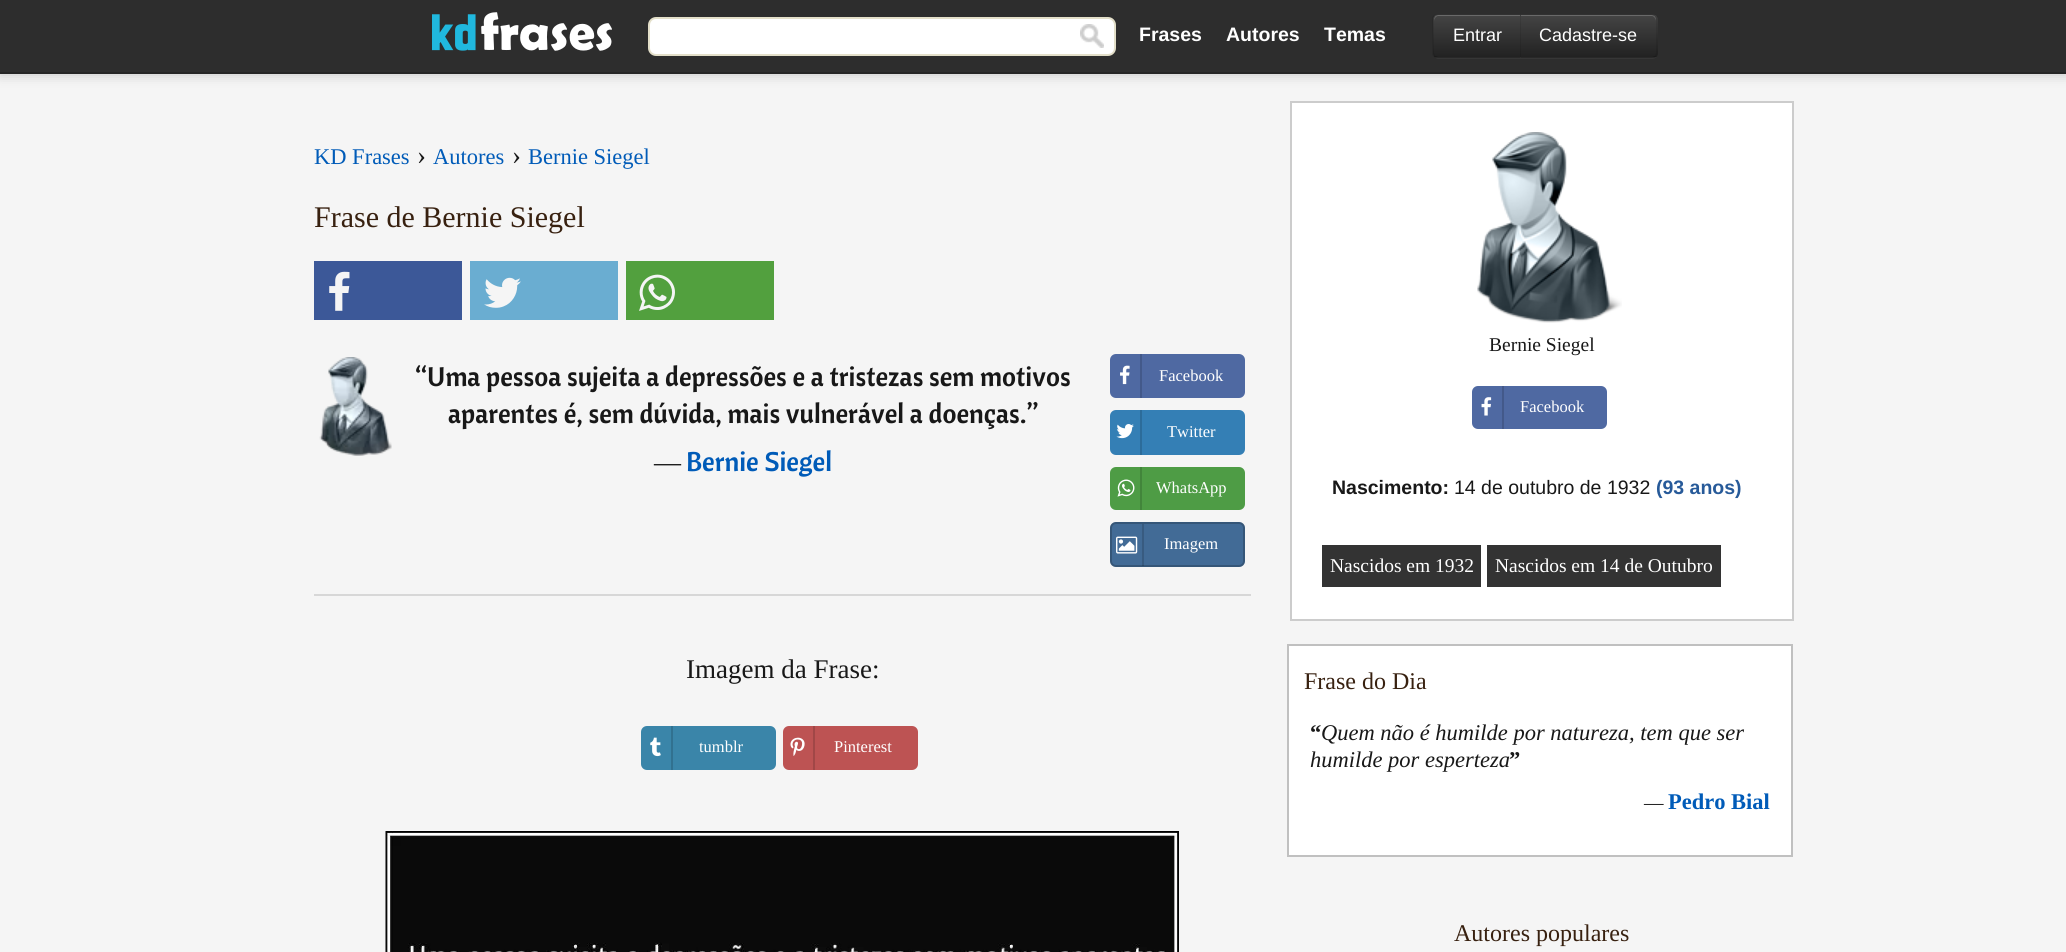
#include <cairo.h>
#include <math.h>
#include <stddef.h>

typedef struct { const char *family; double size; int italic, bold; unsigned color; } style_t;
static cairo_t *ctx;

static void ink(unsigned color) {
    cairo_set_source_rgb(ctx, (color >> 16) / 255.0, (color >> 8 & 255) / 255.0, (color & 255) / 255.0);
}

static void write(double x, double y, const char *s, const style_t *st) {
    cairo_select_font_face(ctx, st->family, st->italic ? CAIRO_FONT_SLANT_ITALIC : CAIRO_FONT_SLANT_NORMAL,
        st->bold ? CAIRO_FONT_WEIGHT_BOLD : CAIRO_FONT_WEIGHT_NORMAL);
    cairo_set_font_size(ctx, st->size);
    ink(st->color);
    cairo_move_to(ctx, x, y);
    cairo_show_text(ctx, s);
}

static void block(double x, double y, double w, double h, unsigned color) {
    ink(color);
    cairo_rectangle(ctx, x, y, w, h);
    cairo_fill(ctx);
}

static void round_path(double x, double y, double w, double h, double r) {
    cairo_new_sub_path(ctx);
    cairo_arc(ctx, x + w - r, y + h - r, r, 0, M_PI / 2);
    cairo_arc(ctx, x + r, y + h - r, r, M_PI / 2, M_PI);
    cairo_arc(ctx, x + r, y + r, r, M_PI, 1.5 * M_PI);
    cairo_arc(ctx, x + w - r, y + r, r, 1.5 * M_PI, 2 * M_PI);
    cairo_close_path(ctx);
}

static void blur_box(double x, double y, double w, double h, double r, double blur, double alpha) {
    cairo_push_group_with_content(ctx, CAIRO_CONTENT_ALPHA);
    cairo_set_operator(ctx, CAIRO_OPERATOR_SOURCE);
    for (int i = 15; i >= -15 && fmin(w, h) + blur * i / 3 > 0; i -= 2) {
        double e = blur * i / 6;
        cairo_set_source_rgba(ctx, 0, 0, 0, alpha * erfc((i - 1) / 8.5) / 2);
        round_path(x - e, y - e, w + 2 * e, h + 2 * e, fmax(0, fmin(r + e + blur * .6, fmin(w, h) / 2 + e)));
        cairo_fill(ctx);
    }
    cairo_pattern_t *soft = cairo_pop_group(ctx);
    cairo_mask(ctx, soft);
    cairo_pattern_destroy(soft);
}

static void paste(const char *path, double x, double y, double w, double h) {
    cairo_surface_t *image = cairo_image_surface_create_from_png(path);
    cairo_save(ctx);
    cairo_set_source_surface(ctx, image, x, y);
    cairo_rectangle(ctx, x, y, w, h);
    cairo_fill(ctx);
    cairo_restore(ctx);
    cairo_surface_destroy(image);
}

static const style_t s1 = {"Liberation Sans", 19.5, 0, 1, 0xffffff};
static const style_t s2 = {"Liberation Sans", 18, 0, 0, 0xffffff};
static const style_t s3 = {"Liberation Serif", 22.5, 0, 0, 0x005bb8};
static const style_t s4 = {"Liberation Serif", 27, 0, 0, 0x181818};
static const style_t s5 = {"Liberation Serif", 30, 0, 0, 0x382110};
static const style_t s6 = {"Cantora One", 27, 0, 0, 0x181818};
static const style_t s7 = {"Cantora One", 27, 0, 0, 0x005bb8};
static const style_t s8 = {"Liberation Serif", 16.5, 0, 0, 0xffffff};
static const style_t s9 = {"Liberation Serif", 19.5, 0, 0, 0x181818};
static const style_t s10 = {"Liberation Sans", 19.5, 0, 1, 0x181818};
static const style_t s11 = {"Liberation Sans", 19.5, 0, 0, 0x181818};
static const style_t s12 = {"Liberation Sans", 19.5, 0, 1, 0x275a99};
static const style_t s13 = {"Liberation Serif", 19.5, 0, 0, 0xffffff};
static const style_t s14 = {"Liberation Serif", 24, 0, 0, 0x382110};
static const style_t s15 = {"Liberation Serif", 22.5, 0, 1, 0x181818};
static const style_t s16 = {"Liberation Serif", 22.5, 1, 0, 0x181818};
static const style_t s17 = {"Liberation Serif", 22.5, 0, 1, 0x005bb8};

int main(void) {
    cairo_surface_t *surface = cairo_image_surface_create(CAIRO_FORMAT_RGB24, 2066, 952);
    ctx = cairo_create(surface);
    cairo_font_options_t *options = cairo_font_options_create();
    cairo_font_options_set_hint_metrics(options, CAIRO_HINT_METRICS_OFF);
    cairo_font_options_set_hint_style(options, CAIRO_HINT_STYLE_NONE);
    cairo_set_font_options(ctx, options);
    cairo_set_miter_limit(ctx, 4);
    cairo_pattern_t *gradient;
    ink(0xf5f5f5);
    cairo_paint(ctx);
    ink(0x000000);
    blur_box(0, -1, 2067, 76, 0, 6, 0.2);
    block(0, 0, 2066, 72, 0x2d2d2d);
    block(0, 72, 2066, 2, 0x252525);
    paste("pic1.png", 432, 12, 180, 39);
    ink(0xffffff);
    round_path(649, 18, 466, 37, 7);
    cairo_fill_preserve(ctx);
    ink(0xe3dfc9);
    cairo_stroke(ctx);
    paste("pic2.png", 1080, 24, 24, 24);
    write(1139, 41, "Frases", &s1);
    write(1226, 41, "Autores", &s1);
    write(1324, 41, "Temas", &s1);
    ink(0x363636);
    cairo_new_path(ctx);
    cairo_move_to(ctx, 1439, 14);
    cairo_line_to(ctx, 1521, 14);
    cairo_line_to(ctx, 1521, 59);
    cairo_line_to(ctx, 1439, 59);
    cairo_curve_to(ctx, 1435.5, 59, 1433, 56.5, 1433, 53);
    cairo_line_to(ctx, 1433, 20);
    cairo_curve_to(ctx, 1433, 16.5, 1435.5, 14, 1439, 14);
    cairo_close_path(ctx);
    cairo_fill(ctx);
    cairo_save(ctx);
    cairo_new_path(ctx);
    cairo_move_to(ctx, 1439, 14);
    cairo_line_to(ctx, 1521, 14);
    cairo_line_to(ctx, 1521, 59);
    cairo_line_to(ctx, 1439, 59);
    cairo_curve_to(ctx, 1435.5, 59, 1433, 56.5, 1433, 53);
    cairo_line_to(ctx, 1433, 20);
    cairo_curve_to(ctx, 1433, 16.5, 1435.5, 14, 1439, 14);
    cairo_close_path(ctx);
    cairo_clip(ctx);
    gradient = cairo_pattern_create_linear(1477, 15, 1477, 57);
    cairo_pattern_add_color_stop_rgba(gradient, 0, 0.267, 0.267, 0.267, 1);
    cairo_pattern_add_color_stop_rgba(gradient, 1, 0.133, 0.133, 0.133, 1);
    cairo_set_source(ctx, gradient);
    cairo_pattern_destroy(gradient);
    cairo_rectangle(ctx, 1433, 15, 87, 42);
    cairo_fill(ctx);
    cairo_restore(ctx);
    cairo_set_source_rgba(ctx, 1, 1, 1, 0.2);
    cairo_new_path(ctx);
    cairo_move_to(ctx, 1438, 16);
    cairo_line_to(ctx, 1520, 16);
    cairo_line_to(ctx, 1520, 15);
    cairo_line_to(ctx, 1439, 15);
    cairo_curve_to(ctx, 1436, 15, 1434, 17, 1434, 20);
    cairo_line_to(ctx, 1434, 21);
    cairo_curve_to(ctx, 1434, 19, 1436, 16, 1438, 16);
    cairo_close_path(ctx);
    cairo_fill(ctx);
    cairo_set_source_rgba(ctx, 0, 0, 0, 0.1);
    cairo_new_path(ctx);
    cairo_move_to(ctx, 1438, 14);
    cairo_line_to(ctx, 1434, 15);
    cairo_line_to(ctx, 1435, 16);
    cairo_line_to(ctx, 1438, 15);
    cairo_line_to(ctx, 1520, 15);
    cairo_line_to(ctx, 1520, 14);
    cairo_close_path(ctx);
    cairo_fill(ctx);
    cairo_set_source_rgba(ctx, 0, 0, 0, 0.25);
    cairo_new_path(ctx);
    cairo_move_to(ctx, 1520, 58);
    cairo_line_to(ctx, 1438, 58);
    cairo_curve_to(ctx, 1437, 58, 1435, 58, 1434, 57);
    cairo_line_to(ctx, 1435, 56);
    cairo_line_to(ctx, 1438, 57);
    cairo_line_to(ctx, 1520, 57);
    cairo_close_path(ctx);
    cairo_fill(ctx);
    cairo_set_source_rgba(ctx, 0, 0, 0, 0.1);
    cairo_new_path(ctx);
    cairo_move_to(ctx, 1432, 17);
    cairo_line_to(ctx, 1434, 15);
    cairo_line_to(ctx, 1435, 16);
    cairo_curve_to(ctx, 1435, 17, 1434, 18, 1434, 20);
    cairo_line_to(ctx, 1434, 52);
    cairo_curve_to(ctx, 1434, 54, 1435, 55, 1435, 56);
    cairo_line_to(ctx, 1434, 57);
    cairo_line_to(ctx, 1432, 55);
    cairo_close_path(ctx);
    cairo_fill(ctx);
    write(1453, 41, "Entrar", &s2);
    ink(0x363636);
    cairo_new_path(ctx);
    cairo_move_to(ctx, 1520, 14);
    cairo_line_to(ctx, 1652, 14);
    cairo_curve_to(ctx, 1655.5, 14, 1658, 16.5, 1658, 20);
    cairo_line_to(ctx, 1658, 53);
    cairo_curve_to(ctx, 1658, 56.5, 1655.5, 59, 1652, 59);
    cairo_line_to(ctx, 1520, 59);
    cairo_close_path(ctx);
    cairo_fill(ctx);
    cairo_save(ctx);
    cairo_new_path(ctx);
    cairo_move_to(ctx, 1520, 14);
    cairo_line_to(ctx, 1652, 14);
    cairo_curve_to(ctx, 1655.5, 14, 1658, 16.5, 1658, 20);
    cairo_line_to(ctx, 1658, 53);
    cairo_curve_to(ctx, 1658, 56.5, 1655.5, 59, 1652, 59);
    cairo_line_to(ctx, 1520, 59);
    cairo_close_path(ctx);
    cairo_clip(ctx);
    gradient = cairo_pattern_create_linear(1589, 15, 1589, 57);
    cairo_pattern_add_color_stop_rgba(gradient, 0, 0.267, 0.267, 0.267, 1);
    cairo_pattern_add_color_stop_rgba(gradient, 1, 0.133, 0.133, 0.133, 1);
    cairo_set_source(ctx, gradient);
    cairo_pattern_destroy(gradient);
    cairo_rectangle(ctx, 1520, 15, 138, 42);
    cairo_fill(ctx);
    cairo_restore(ctx);
    cairo_set_source_rgba(ctx, 1, 1, 1, 0.2);
    cairo_new_path(ctx);
    cairo_move_to(ctx, 1521, 16);
    cairo_line_to(ctx, 1652, 16);
    cairo_curve_to(ctx, 1654, 16, 1656, 19, 1656, 21);
    cairo_line_to(ctx, 1656, 20);
    cairo_curve_to(ctx, 1656, 17, 1654, 15, 1651, 15);
    cairo_line_to(ctx, 1521, 15);
    cairo_close_path(ctx);
    cairo_fill(ctx);
    cairo_set_source_rgba(ctx, 0, 0, 0, 0.1);
    cairo_new_path(ctx);
    cairo_move_to(ctx, 1520, 14);
    cairo_line_to(ctx, 1521, 15);
    cairo_line_to(ctx, 1652, 15);
    cairo_line_to(ctx, 1655, 16);
    cairo_line_to(ctx, 1656, 15);
    cairo_line_to(ctx, 1652, 14);
    cairo_close_path(ctx);
    cairo_fill(ctx);
    cairo_new_path(ctx);
    cairo_move_to(ctx, 1656, 15);
    cairo_line_to(ctx, 1658, 17);
    cairo_line_to(ctx, 1658, 55);
    cairo_line_to(ctx, 1656, 57);
    cairo_line_to(ctx, 1655, 56);
    cairo_curve_to(ctx, 1655, 55, 1656, 54, 1656, 52);
    cairo_line_to(ctx, 1656, 20);
    cairo_curve_to(ctx, 1656, 18, 1655, 17, 1655, 16);
    cairo_close_path(ctx);
    cairo_fill(ctx);
    cairo_set_source_rgba(ctx, 0, 0, 0, 0.25);
    cairo_new_path(ctx);
    cairo_move_to(ctx, 1656, 57);
    cairo_curve_to(ctx, 1655, 58, 1653, 58, 1652, 58);
    cairo_line_to(ctx, 1520, 58);
    cairo_line_to(ctx, 1521, 57);
    cairo_line_to(ctx, 1652, 57);
    cairo_line_to(ctx, 1655, 56);
    cairo_close_path(ctx);
    cairo_fill(ctx);
    cairo_set_source_rgba(ctx, 0, 0, 0, 0.1);
    cairo_new_path(ctx);
    cairo_move_to(ctx, 1521, 15);
    cairo_line_to(ctx, 1520, 14);
    cairo_line_to(ctx, 1520, 58);
    cairo_line_to(ctx, 1521, 57);
    cairo_close_path(ctx);
    cairo_fill(ctx);
    write(1539, 41, "Cadastre-se", &s2);
    write(314, 164, "KD Frases", &s3);
    write(417, 164, "›", &s4);
    write(433, 164, "Autores", &s3);
    write(512, 164, "›", &s4);
    write(528, 164, "Bernie Siegel", &s3);
    write(314, 227, "Frase de Bernie Siegel", &s5);
    block(314, 261, 148, 59, 0x3c5898);
    paste("pic3.png", 329, 271, 21, 40);
    block(470, 261, 148, 59, 0x6aadd1);
    paste("pic4.png", 484, 277, 37, 31);
    block(626, 261, 148, 59, 0x52a03e);
    paste("pic5.png", 639, 274, 36, 37);
    block(314, 594, 937, 2, 0xd7d7d7);
    paste("pic6.png", 319, 357, 73, 99);
    write(415, 386, "“Uma pessoa sujeita a depressões e a tristezas sem motivos", &s6);
    write(448, 423, "aparentes é, sem dúvida, mais vulnerável a doenças.”", &s6);
    write(654, 471, "―", &s4);
    write(686, 471, "Bernie Siegel", &s7);
    ink(0x4f69a2);
    round_path(1110, 354, 135, 44, 6);
    cairo_fill(ctx);
    block(1140, 354, 2, 44, 0x43598a);
    paste("pic7.png", 1120, 365, 10, 20);
    write(1159, 381, "Facebook", &s8);
    ink(0x347fb5);
    round_path(1110, 410, 135, 45, 6);
    cairo_fill(ctx);
    block(1140, 410, 2, 45, 0x2c6c9a);
    paste("pic8.png", 1116, 424, 18, 15);
    write(1167, 437, "Twitter", &s8);
    ink(0x4e9c45);
    round_path(1110, 467, 135, 43, 6);
    cairo_fill(ctx);
    block(1140, 467, 2, 43, 0x42853b);
    paste("pic9.png", 1117, 479, 18, 18);
    write(1156, 493, "WhatsApp", &s8);
    ink(0x426b96);
    round_path(1110, 522, 135, 45, 6);
    cairo_fill(ctx);
    round_path(1111, 523, 133, 43, 5);
    cairo_set_source_rgba(ctx, 0, 0, 0, 0.2);
    cairo_stroke(ctx);
    cairo_set_source_rgba(ctx, 0, 0, 0, 0.15);
    cairo_rectangle(ctx, 1142, 524, 2, 42);
    cairo_fill(ctx);
    paste("pic10.png", 1116, 536, 22, 18);
    write(1164, 549, "Imagem", &s8);
    write(686, 678, "Imagem da Frase:", &s4);
    ink(0x3a85a9);
    round_path(641, 726, 135, 44, 6);
    cairo_fill(ctx);
    block(671, 726, 2, 44, 0x317190);
    paste("pic11.png", 650, 737, 11, 20);
    write(699, 752, "tumblr", &s8);
    ink(0xbd5353);
    round_path(783, 726, 135, 44, 6);
    cairo_fill(ctx);
    block(813, 726, 2, 44, 0xa14747);
    paste("pic12.png", 790, 737, 15, 19);
    write(834, 752, "Pinterest", &s8);
    paste("pic13.png", 385, 831, 794, 121);
    cairo_rectangle(ctx, 1291, 102, 502, 518);
    cairo_fill_preserve(ctx);
    ink(0xcccccc);
    cairo_stroke(ctx);
    paste("pic14.png", 1477, 132, 145, 191);
    write(1489, 351, "Bernie Siegel", &s9);
    ink(0x4f69a2);
    round_path(1472, 386, 135, 43, 6);
    cairo_fill(ctx);
    block(1502, 386, 2, 43, 0x43598a);
    paste("pic15.png", 1481, 397, 11, 19);
    write(1520, 412, "Facebook", &s8);
    write(1332, 494, "Nascimento:", &s10);
    write(1454, 494, "14 de outubro de 1932", &s11);
    write(1656, 494, "(93 anos)", &s12);
    block(1322, 545, 159, 42, 0x333333);
    write(1330, 572, "Nascidos em 1932", &s13);
    block(1487, 545, 234, 42, 0x333333);
    write(1495, 572, "Nascidos em 14 de Outubro", &s13);
    cairo_rectangle(ctx, 1288, 645, 504, 211);
    cairo_fill_preserve(ctx);
    ink(0xc0c0c0);
    cairo_stroke(ctx);
    write(1304, 689, "Frase do Dia", &s14);
    write(1310, 740, "“", &s15);
    write(1321, 740, "Quem não é humilde por natureza, tem que ser", &s16);
    write(1310, 767, "humilde por esperteza", &s16);
    write(1509, 767, "”", &s15);
    write(1644, 809, "—", &s9);
    write(1668, 809, "Pedro Bial", &s17);
    write(1454, 941, "Autores populares", &s14);
    cairo_surface_write_to_png(surface, "screenshot.png");
    cairo_font_options_destroy(options);
    cairo_destroy(ctx);
    cairo_surface_destroy(surface);
    return 0;
}
